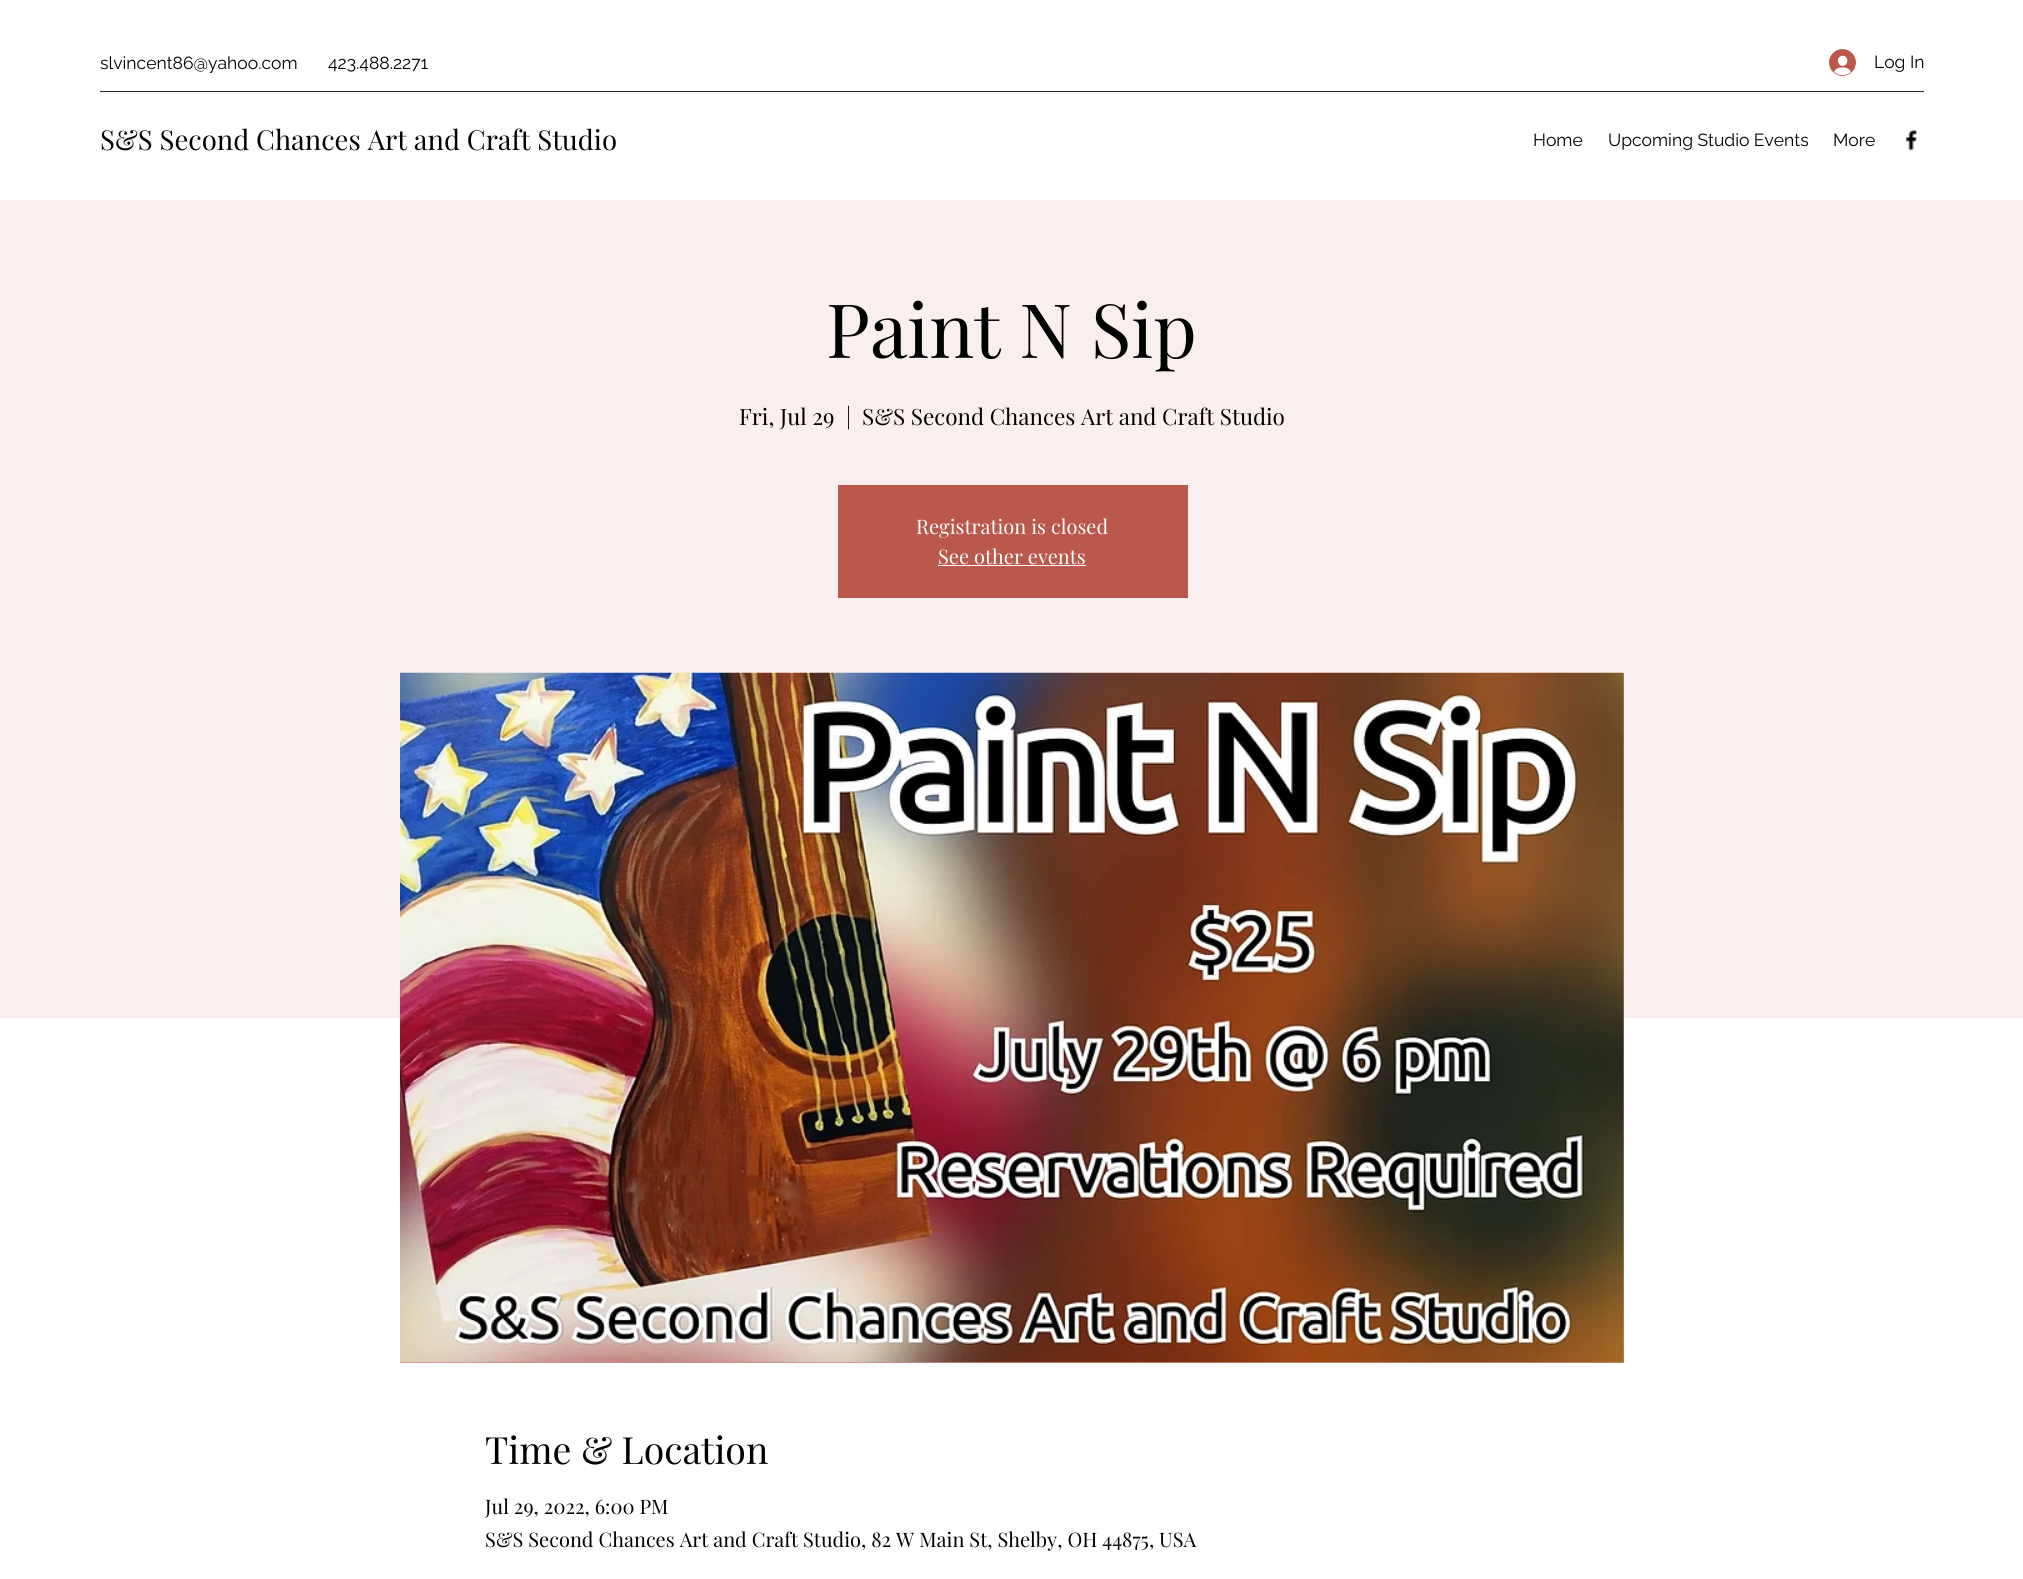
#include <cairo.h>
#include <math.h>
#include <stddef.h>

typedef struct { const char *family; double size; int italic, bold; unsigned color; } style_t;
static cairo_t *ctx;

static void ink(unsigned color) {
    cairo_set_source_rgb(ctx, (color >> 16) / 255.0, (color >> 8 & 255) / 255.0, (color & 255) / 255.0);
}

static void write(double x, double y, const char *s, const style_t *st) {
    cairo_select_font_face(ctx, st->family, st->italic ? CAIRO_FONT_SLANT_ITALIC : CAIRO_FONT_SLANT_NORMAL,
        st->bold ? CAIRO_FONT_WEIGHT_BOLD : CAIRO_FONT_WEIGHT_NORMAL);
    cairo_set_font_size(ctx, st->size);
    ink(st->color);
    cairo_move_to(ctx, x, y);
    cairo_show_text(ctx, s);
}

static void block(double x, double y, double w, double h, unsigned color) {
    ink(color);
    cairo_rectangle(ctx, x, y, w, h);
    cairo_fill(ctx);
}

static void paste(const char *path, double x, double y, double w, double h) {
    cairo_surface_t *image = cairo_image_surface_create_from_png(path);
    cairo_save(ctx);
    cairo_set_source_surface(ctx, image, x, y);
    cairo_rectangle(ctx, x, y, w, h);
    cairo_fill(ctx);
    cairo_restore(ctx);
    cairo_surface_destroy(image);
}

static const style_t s1 = {"Raleway", 17.5, 0, 0, 0x000000};
static const style_t s2 = {"Playfair Display", 27.5, 0, 0, 0x000000};
static const style_t s3 = {"Playfair Display", 75, 0, 0, 0x000000};
static const style_t s4 = {"Playfair Display", 22.5, 0, 0, 0x000000};
static const style_t s5 = {"Playfair Display", 20, 0, 0, 0xffffff};
static const style_t s6 = {"Playfair Display", 37.5, 0, 0, 0x000000};
static const style_t s7 = {"Playfair Display", 20, 0, 0, 0x000000};

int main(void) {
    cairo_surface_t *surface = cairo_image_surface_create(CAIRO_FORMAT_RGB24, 2023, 1579);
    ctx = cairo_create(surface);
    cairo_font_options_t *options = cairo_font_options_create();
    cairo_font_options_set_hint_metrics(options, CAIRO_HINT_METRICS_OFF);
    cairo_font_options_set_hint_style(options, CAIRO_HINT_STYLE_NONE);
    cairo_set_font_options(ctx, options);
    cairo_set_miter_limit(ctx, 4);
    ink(0xffffff);
    cairo_paint(ctx);
    write(100, 69, "slvincent86@yahoo.com", &s1);
    write(328, 69, "423.488.2271", &s1);
    paste("pic1.png", 1829, 49, 27, 27);
    write(1874, 68, "Log In", &s1);
    block(100, 91, 1824, 1, 0x262626);
    write(100, 150, "S&S Second Chances Art and Craft Studio", &s2);
    write(1533, 146, "Home", &s1);
    write(1608, 146, "Upcoming Studio Events", &s1);
    write(1833, 146, "More", &s1);
    paste("pic2.png", 1906, 129, 11, 22);
    block(0, 200, 2023, 818, 0xf9efee);
    write(826, 358, "Paint N Sip", &s3);
    write(739, 425, "Fri, Jul 29", &s4);
    write(846, 425, "|", &s4);
    write(862, 425, "S&S Second Chances Art and Craft Studio", &s4);
    block(838, 485, 350, 113, 0xb9584b);
    write(916, 534, "Registration is closed", &s5);
    write(938, 564, "See other events", &s5);
    block(938, 565, 148, 1, 0xffffff);
    block(400, 673, 1224, 690, 0xd09087);
    paste("pic3.png", 400, 672, 1224, 691);
    write(485, 1464, "Time & Location", &s6);
    write(485, 1514, "Jul 29, 2022, 6:00 PM", &s7);
    write(485, 1547, "S&S Second Chances Art and Craft Studio, 82 W Main St, Shelby, OH 44875, USA", &s7);
    cairo_surface_write_to_png(surface, "screenshot.png");
    cairo_font_options_destroy(options);
    cairo_destroy(ctx);
    cairo_surface_destroy(surface);
    return 0;
}
